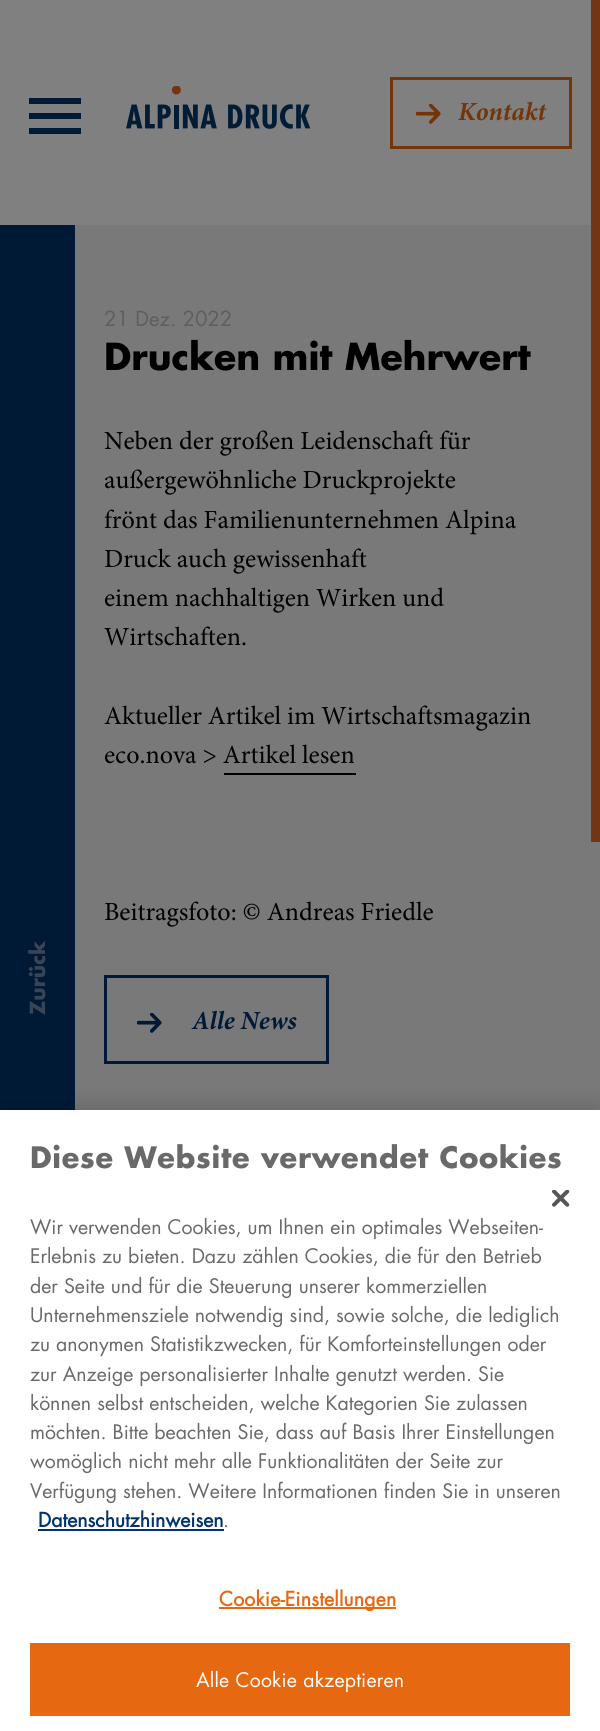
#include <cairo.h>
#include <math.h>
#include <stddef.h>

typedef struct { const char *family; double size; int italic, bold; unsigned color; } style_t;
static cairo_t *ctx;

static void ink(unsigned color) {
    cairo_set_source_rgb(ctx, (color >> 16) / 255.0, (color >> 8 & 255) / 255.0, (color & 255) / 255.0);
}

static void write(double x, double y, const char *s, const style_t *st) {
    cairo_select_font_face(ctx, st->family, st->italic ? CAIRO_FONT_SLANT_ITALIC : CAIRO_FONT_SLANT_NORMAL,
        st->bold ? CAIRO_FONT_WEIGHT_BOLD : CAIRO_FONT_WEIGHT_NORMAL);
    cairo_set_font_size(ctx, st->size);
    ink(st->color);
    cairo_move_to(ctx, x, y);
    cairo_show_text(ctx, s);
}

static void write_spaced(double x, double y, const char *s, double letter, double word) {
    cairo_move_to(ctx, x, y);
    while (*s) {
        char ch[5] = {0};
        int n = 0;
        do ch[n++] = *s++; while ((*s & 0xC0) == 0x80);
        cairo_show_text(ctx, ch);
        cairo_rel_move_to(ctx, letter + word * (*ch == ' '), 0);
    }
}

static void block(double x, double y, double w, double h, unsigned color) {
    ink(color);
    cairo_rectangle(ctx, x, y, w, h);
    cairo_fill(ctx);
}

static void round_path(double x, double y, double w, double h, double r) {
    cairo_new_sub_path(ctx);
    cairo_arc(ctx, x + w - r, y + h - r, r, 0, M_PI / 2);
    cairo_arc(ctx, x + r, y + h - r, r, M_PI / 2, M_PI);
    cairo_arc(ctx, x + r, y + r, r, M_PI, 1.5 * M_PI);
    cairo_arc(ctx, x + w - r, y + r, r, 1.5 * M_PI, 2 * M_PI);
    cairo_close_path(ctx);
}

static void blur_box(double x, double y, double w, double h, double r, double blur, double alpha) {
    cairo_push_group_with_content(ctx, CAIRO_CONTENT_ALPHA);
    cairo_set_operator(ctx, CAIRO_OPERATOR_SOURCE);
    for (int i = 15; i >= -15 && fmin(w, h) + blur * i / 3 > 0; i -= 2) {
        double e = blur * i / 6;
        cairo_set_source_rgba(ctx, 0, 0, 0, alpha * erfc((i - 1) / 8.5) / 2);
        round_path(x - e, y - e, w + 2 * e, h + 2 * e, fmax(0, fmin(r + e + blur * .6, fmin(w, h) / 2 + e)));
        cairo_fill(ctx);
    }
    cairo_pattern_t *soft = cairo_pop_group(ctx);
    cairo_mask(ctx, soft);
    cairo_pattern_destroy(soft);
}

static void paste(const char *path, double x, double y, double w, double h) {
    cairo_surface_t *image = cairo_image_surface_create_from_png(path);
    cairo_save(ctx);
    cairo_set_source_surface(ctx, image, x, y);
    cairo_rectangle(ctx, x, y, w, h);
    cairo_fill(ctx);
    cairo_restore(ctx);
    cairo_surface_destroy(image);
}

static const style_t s1 = {"Minion", 26.1, 1, 1, 0x733509};
static const style_t s2 = {"Futura", 20.25, 0, 1, 0x374555};
static const style_t s3 = {"Futura", 20.25, 0, 0, 0x5e5e5e};
static const style_t s4 = {"Futura", 36.25, 0, 1, 0x000000};
static const style_t s5 = {"Minion", 26.1, 0, 0, 0x000000};
static const style_t s6 = {"Minion", 26.1, 1, 1, 0x001a36};
static const style_t s7 = {"Futura", 19.5, 0, 0, 0x696969};
static const style_t s8 = {"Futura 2", 19.5, 0, 1, 0x00346c};

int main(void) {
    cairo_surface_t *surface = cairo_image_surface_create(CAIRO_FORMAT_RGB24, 600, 1731);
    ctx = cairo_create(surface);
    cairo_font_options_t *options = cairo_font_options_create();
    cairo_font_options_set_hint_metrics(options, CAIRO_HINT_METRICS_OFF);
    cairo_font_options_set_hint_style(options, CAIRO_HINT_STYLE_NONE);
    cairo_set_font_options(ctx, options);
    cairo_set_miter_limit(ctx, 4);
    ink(0x797979);
    cairo_paint(ctx);
    block(0, 0, 591, 225, 0x808080);
    block(29, 98, 52, 6, 0x001a36);
    block(29, 113, 52, 6, 0x001a36);
    block(29, 128, 52, 6, 0x001a36);
    paste("pic1.png", 126, 86, 185, 43);
    cairo_rectangle(ctx, 391.5, 78.5, 179, 69);
    ink(0x733509);
    cairo_set_line_width(ctx, 3);
    cairo_stroke(ctx);
    paste("pic2.png", 416, 104, 25, 20);
    write(458, 120, "Kontakt", &s1);
    block(591, 0, 9, 842, 0x723615);
    block(0, 225, 75, 885, 0x001a36);
    cairo_save(ctx);
    cairo_translate(ctx, 45, 1015);
    cairo_rotate(ctx, -90 * M_PI / 180);
    write(0, 0, "Zurück", &s2);
    cairo_restore(ctx);
    write(104, 326, "21 Dez. 2022", &s3);
    write(104, 370, "Drucken mit Mehrwert", &s4);
    write(104, 449, "Neben der großen Leidenschaft für", &s5);
    write(104, 488, "außergewöhnliche Druckprojekte", &s5);
    write(104, 528, "frönt das Familienunternehmen Alpina", &s5);
    write(104, 567, "Druck auch gewissenhaft", &s5);
    write(104, 606, "einem nachhaltigen Wirken und", &s5);
    write(104, 645, "Wirtschaften.", &s5);
    write(104, 724, "Aktueller Artikel im Wirtschaftsmagazin", &s5);
    write(104, 763, "eco.nova > Artikel lesen", &s5);
    block(224, 773, 132, 2, 0x000000);
    write(104, 920, "Beitragsfoto: © Andreas Friedle", &s5);
    cairo_rectangle(ctx, 105.5, 976.5, 222, 86);
    ink(0x001a36);
    cairo_stroke(ctx);
    paste("pic3.png", 137, 1013, 25, 20);
    write(192, 1029, "Alle News", &s6);
    ink(0x000000);
    blur_box(0, 1110, 600, 621, 0, 13.5, 0.2);
    block(0, 1110, 600, 621, 0xffffff);
    cairo_select_font_face(ctx, "Futura", CAIRO_FONT_SLANT_NORMAL, CAIRO_FONT_WEIGHT_BOLD);
    cairo_set_font_size(ctx, 28.75);
    ink(0x696969);
    write_spaced(30, 1168, "Diese Website verwendet Cookies", 0.75, 0);
    paste("pic4.png", 552, 1190, 18, 17);
    write(30, 1234, "Wir verwenden Cookies, um Ihnen ein optimales Webseiten-", &s7);
    write(30, 1263, "Erlebnis zu bieten. Dazu zählen Cookies, die für den Betrieb", &s7);
    write(30, 1293, "der Seite und für die Steuerung unserer kommerziellen", &s7);
    write(30, 1322, "Unternehmensziele notwendig sind, sowie solche, die lediglich", &s7);
    write(30, 1351, "zu anonymen Statistikzwecken, für Komforteinstellungen oder", &s7);
    write(30, 1381, "zur Anzeige personalisierter Inhalte genutzt werden. Sie", &s7);
    write(30, 1410, "können selbst entscheiden, welche Kategorien Sie zulassen", &s7);
    write(30, 1439, "möchten. Bitte beachten Sie, dass auf Basis Ihrer Einstellungen", &s7);
    write(30, 1468, "womöglich nicht mehr alle Funktionalitäten der Seite zur", &s7);
    write(30, 1498, "Verfügung stehen. Weitere Informationen finden Sie in unseren", &s7);
    write(38, 1527, "Datenschutzhinweisen", &s8);
    block(38, 1529, 186, 2, 0x00346c);
    write(223, 1527, ".", &s7);
    block(219, 1607, 177, 2, 0xe66912);
    cairo_select_font_face(ctx, "Futura 2", CAIRO_FONT_SLANT_NORMAL, CAIRO_FONT_WEIGHT_BOLD);
    write_spaced(219, 1606, "Cookie-Einstellungen", 0.2, 0);
    block(30, 1643, 540, 73, 0xe66912);
    cairo_select_font_face(ctx, "Futura", CAIRO_FONT_SLANT_NORMAL, CAIRO_FONT_WEIGHT_NORMAL);
    ink(0xffffff);
    write_spaced(196, 1687, "Alle Cookie akzeptieren", 0.2, 0);
    cairo_surface_write_to_png(surface, "screenshot.png");
    cairo_font_options_destroy(options);
    cairo_destroy(ctx);
    cairo_surface_destroy(surface);
    return 0;
}
